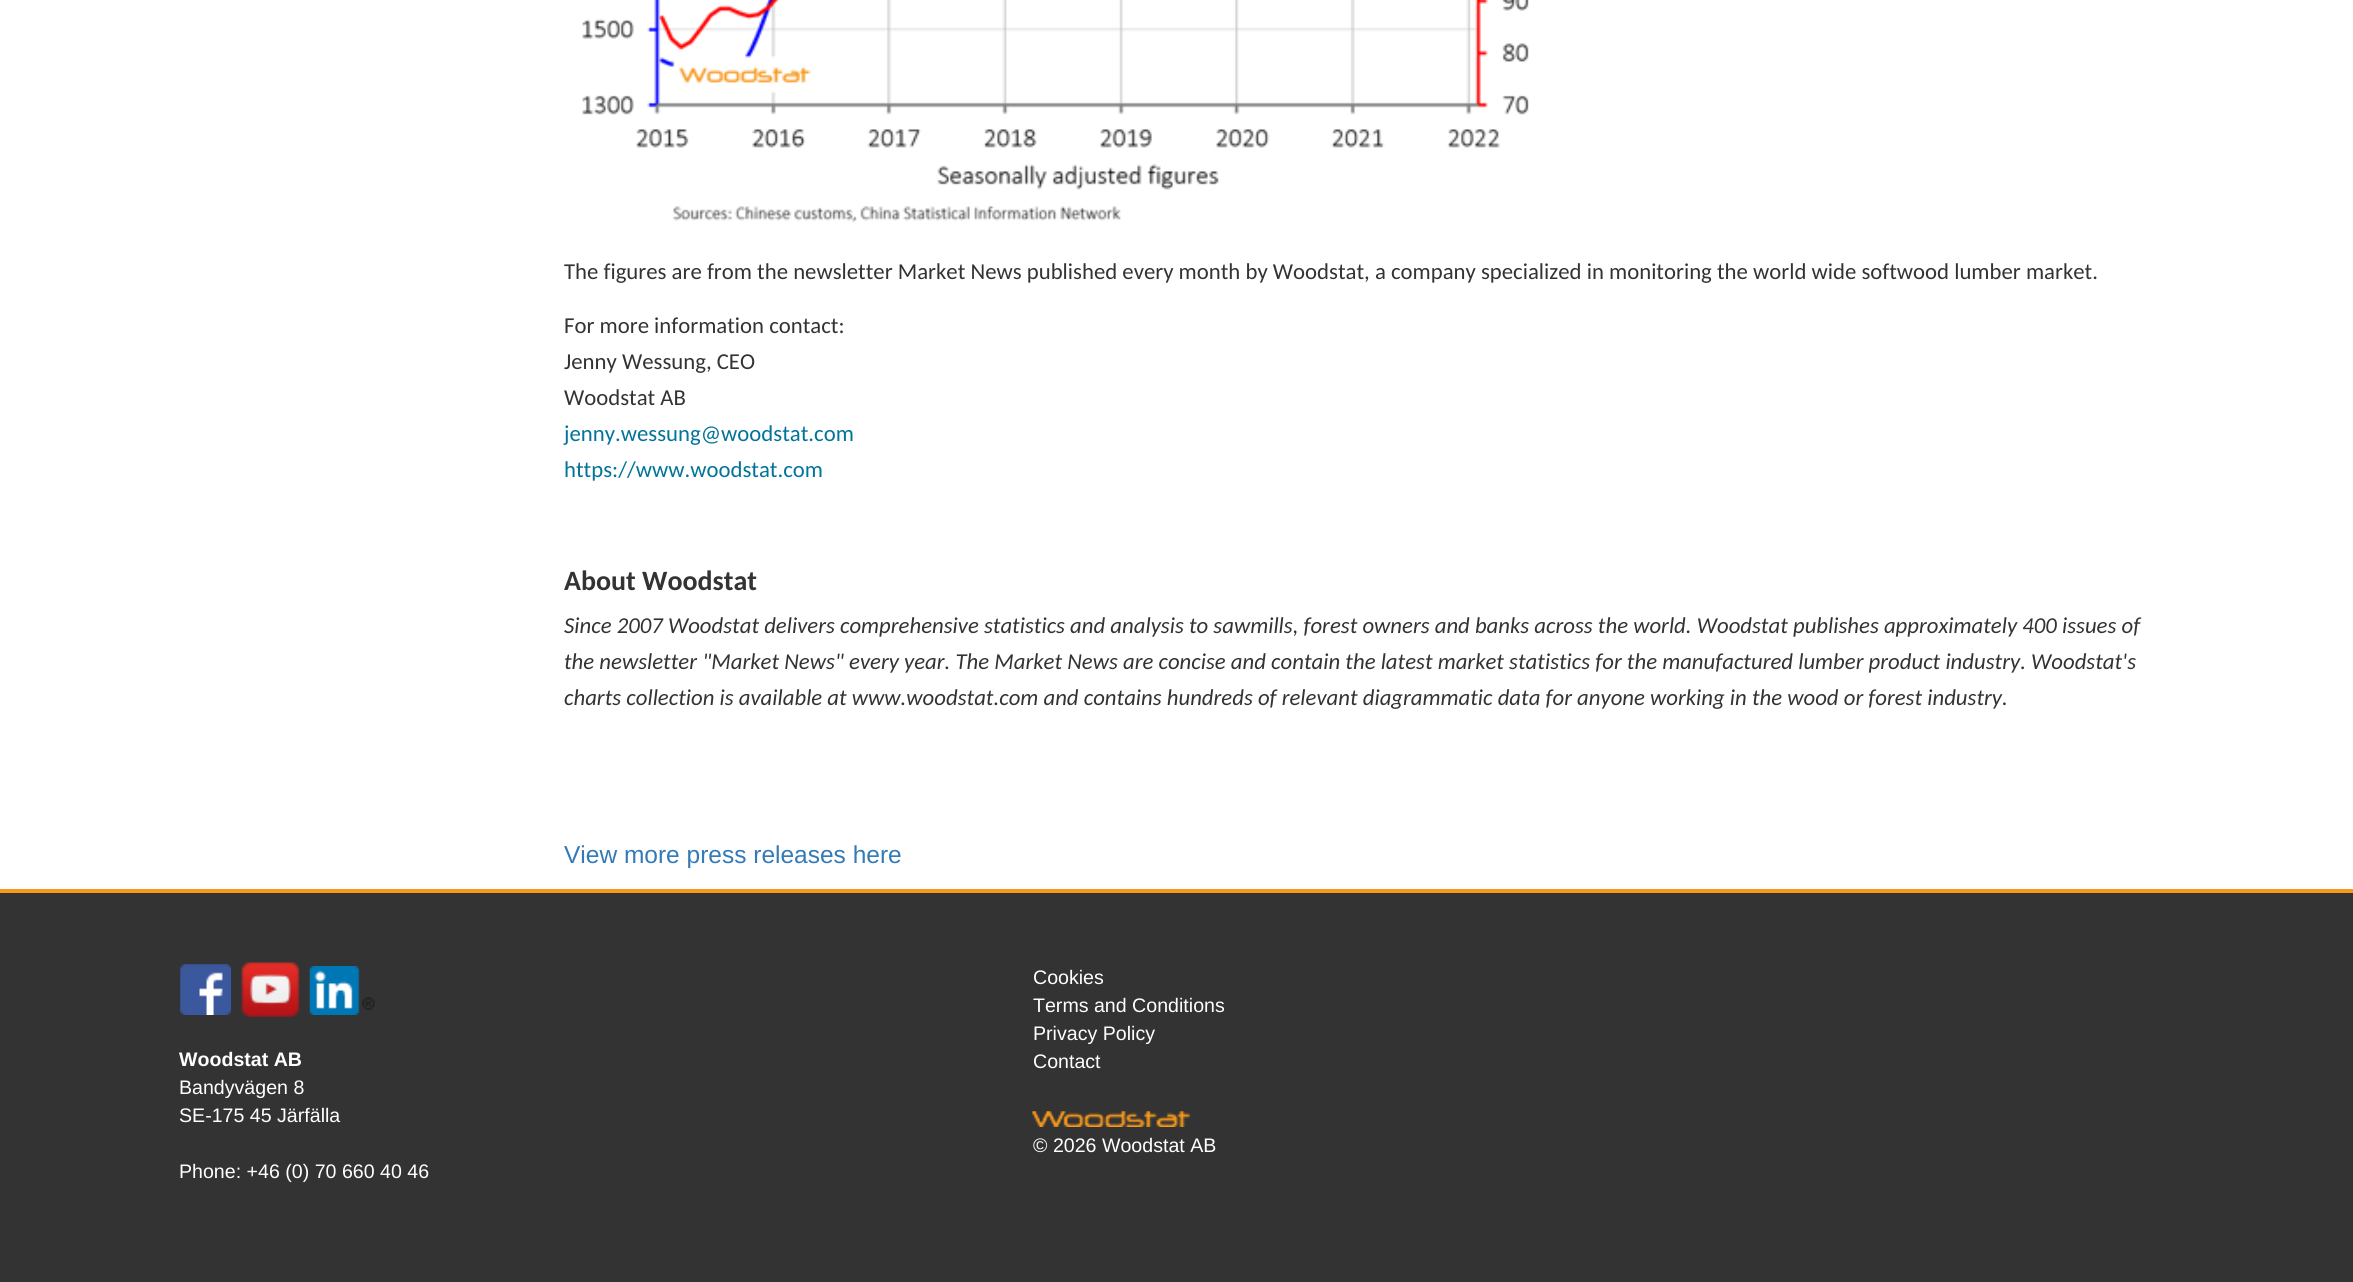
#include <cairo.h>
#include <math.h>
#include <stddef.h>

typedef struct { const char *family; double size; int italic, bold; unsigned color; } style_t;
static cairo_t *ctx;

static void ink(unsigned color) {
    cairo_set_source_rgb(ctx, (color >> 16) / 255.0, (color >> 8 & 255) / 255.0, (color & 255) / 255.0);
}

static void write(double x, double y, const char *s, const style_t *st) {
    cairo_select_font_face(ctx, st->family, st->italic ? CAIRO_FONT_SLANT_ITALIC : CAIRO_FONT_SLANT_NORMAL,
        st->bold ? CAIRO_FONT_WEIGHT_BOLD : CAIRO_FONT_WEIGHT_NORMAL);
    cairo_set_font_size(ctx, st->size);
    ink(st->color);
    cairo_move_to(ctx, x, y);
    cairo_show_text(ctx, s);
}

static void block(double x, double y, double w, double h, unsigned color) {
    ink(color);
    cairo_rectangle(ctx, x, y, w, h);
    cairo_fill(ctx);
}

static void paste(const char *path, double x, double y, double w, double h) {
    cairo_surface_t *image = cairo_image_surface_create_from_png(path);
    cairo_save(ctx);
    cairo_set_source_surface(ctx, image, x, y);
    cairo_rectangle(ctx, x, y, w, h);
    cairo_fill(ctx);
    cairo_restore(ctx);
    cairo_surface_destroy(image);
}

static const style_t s1 = {"Carlito", 22.75, 0, 0, 0x333333};
static const style_t s2 = {"Carlito", 22.75, 0, 0, 0x027399};
static const style_t s3 = {"Carlito", 28, 0, 1, 0x333333};
static const style_t s4 = {"Carlito", 22.75, 1, 0, 0x333333};
static const style_t s5 = {"Liberation Sans", 24.5, 0, 0, 0x337ab7};
static const style_t s6 = {"Liberation Sans", 19.6, 0, 1, 0xffffff};
static const style_t s7 = {"Liberation Sans", 19.6, 0, 0, 0xffffff};

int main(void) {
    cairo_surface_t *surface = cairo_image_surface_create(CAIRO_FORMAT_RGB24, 2353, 1282);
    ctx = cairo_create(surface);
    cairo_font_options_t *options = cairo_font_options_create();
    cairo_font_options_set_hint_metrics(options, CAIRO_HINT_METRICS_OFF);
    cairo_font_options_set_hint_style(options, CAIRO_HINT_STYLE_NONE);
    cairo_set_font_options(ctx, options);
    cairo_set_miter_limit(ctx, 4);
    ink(0xffffff);
    cairo_paint(ctx);
    paste("pic1.png", 582, 0, 947, 223);
    write(564, 279, "The figures are from the newsletter Market News published every month by Woodstat, a company specialized in monitoring the world wide softwood lumber market.", &s1);
    write(564, 333, "For more information contact:", &s1);
    write(564, 369, "Jenny Wessung, CEO", &s1);
    write(564, 405, "Woodstat AB", &s1);
    write(564, 441, "jenny.wessung@woodstat.com", &s2);
    write(564, 477, "https://www.woodstat.com", &s2);
    write(564, 590, "About Woodstat", &s3);
    write(564, 633, "Since 2007 Woodstat delivers comprehensive statistics and analysis to sawmills, forest owners and banks across the world. Woodstat publishes approximately 400 issues of", &s4);
    write(564, 669, "the newsletter \"Market News\" every year. The Market News are concise and contain the latest market statistics for the manufactured lumber product industry. Woodstat's", &s4);
    write(564, 705, "charts collection is available at www.woodstat.com and contains hundreds of relevant diagrammatic data for anyone working in the wood or forest industry.", &s4);
    write(564, 863, "View more press releases here", &s5);
    block(0, 893, 2353, 389, 0x333333);
    block(0, 889, 2353, 4, 0xf8991d);
    paste("pic2.png", 180, 964, 51, 51);
    paste("pic3.png", 241, 962, 59, 55);
    paste("pic4.png", 309, 966, 66, 49);
    write(179, 1066, "Woodstat AB", &s6);
    write(179, 1094, "Bandyvägen 8", &s7);
    write(179, 1122, "SE-175 45 Järfälla", &s7);
    write(179, 1178, "Phone: +46 (0) 70 660 40 46", &s7);
    write(1033, 984, "Cookies", &s7);
    write(1033, 1012, "Terms and Conditions", &s7);
    write(1033, 1040, "Privacy Policy", &s7);
    write(1033, 1068, "Contact", &s7);
    paste("pic5.png", 1032, 1111, 158, 16);
    write(1033, 1152, "© 2026 Woodstat AB", &s7);
    cairo_surface_write_to_png(surface, "screenshot.png");
    cairo_font_options_destroy(options);
    cairo_destroy(ctx);
    cairo_surface_destroy(surface);
    return 0;
}
